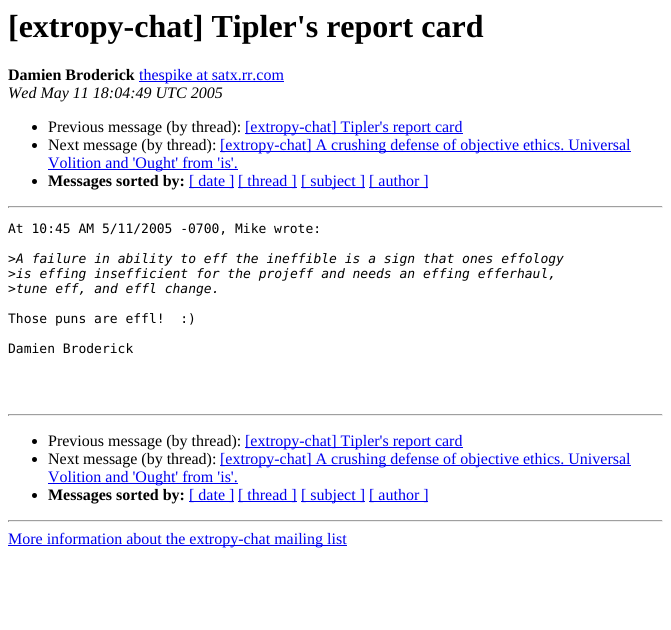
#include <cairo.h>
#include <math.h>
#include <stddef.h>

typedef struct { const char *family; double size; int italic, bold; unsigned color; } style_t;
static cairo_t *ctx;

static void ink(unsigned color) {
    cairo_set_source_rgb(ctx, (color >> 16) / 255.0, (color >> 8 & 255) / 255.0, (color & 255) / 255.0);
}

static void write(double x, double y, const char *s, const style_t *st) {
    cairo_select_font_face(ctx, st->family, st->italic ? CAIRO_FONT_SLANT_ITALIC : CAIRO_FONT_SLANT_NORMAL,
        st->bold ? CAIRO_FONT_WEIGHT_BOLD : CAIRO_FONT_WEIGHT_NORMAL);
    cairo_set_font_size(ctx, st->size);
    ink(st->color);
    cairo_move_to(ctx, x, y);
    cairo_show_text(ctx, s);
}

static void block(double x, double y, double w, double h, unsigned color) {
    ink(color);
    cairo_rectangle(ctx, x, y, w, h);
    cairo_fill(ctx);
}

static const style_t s1 = {"Liberation Serif", 32, 0, 1, 0x000000};
static const style_t s2 = {"Liberation Serif", 16, 0, 1, 0x000000};
static const style_t s3 = {"Liberation Serif", 16, 0, 0, 0x0000ee};
static const style_t s4 = {"Liberation Serif", 16, 1, 0, 0x000000};
static const style_t s5 = {"Liberation Serif", 16, 0, 0, 0x000000};
static const style_t s6 = {"DejaVu Sans Mono", 13, 0, 0, 0x000000};
static const style_t s7 = {"DejaVu Sans Mono", 13, 1, 0, 0x000000};

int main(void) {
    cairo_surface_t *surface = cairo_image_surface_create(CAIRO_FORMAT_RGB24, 671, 630);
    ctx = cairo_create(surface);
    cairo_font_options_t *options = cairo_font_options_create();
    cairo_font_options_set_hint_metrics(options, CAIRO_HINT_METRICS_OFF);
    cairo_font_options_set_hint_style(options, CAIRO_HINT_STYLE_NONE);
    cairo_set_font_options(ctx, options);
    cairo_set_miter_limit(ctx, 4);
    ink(0xffffff);
    cairo_paint(ctx);
    write(8, 37, "[extropy-chat] Tipler's report card", &s1);
    write(8, 80, "Damien Broderick", &s2);
    block(139, 81, 145, 1, 0x0000ee);
    write(139, 80, "thespike at satx.rr.com", &s3);
    write(8, 98, "Wed May 11 18:04:49 UTC 2005", &s4);
    cairo_new_path(ctx);
    cairo_arc(ctx, 34.5, 127.5, 2.5, 0, 2 * M_PI);
    cairo_fill(ctx);
    write(48, 132, "Previous message (by thread):", &s5);
    block(245, 133, 218, 1, 0x0000ee);
    write(245, 132, "[extropy-chat] Tipler's report card", &s3);
    ink(0x000000);
    cairo_new_path(ctx);
    cairo_arc(ctx, 34.5, 145.5, 2.5, 0, 2 * M_PI);
    cairo_fill(ctx);
    write(48, 150, "Next message (by thread):", &s5);
    block(220, 151, 411, 1, 0x0000ee);
    write(220, 150, "[extropy-chat] A crushing defense of objective ethics. Universal", &s3);
    block(48, 169, 190, 1, 0x0000ee);
    write(48, 168, "Volition and 'Ought' from 'is'.", &s3);
    ink(0x000000);
    cairo_new_path(ctx);
    cairo_arc(ctx, 34.5, 181.5, 2.5, 0, 2 * M_PI);
    cairo_fill(ctx);
    write(48, 186, "Messages sorted by:", &s2);
    block(189, 187, 45, 1, 0x0000ee);
    write(189, 186, "[ date ]", &s3);
    block(238, 187, 59, 1, 0x0000ee);
    write(238, 186, "[ thread ]", &s3);
    block(301, 187, 64, 1, 0x0000ee);
    write(301, 186, "[ subject ]", &s3);
    block(369, 187, 59, 1, 0x0000ee);
    write(369, 186, "[ author ]", &s3);
    block(8, 206, 655, 1, 0x9f9f9f);
    block(662, 206, 1, 2, 0xeeeeee);
    block(8, 207, 655, 1, 0xeeeeee);
    block(8, 206, 1, 2, 0x9f9f9f);
    write(8, 233, "At 10:45 AM 5/11/2005 -0700, Mike wrote:", &s6);
    write(8, 263, ">", &s6);
    write(16, 263, "A failure in ability to eff the ineffible is a sign that ones effology", &s7);
    write(8, 278, ">", &s6);
    write(16, 278, "is effing insefficient for the projeff and needs an effing efferhaul,", &s7);
    write(8, 293, ">", &s6);
    write(16, 293, "tune eff, and effl change.", &s7);
    write(8, 323, "Those puns are effl!  :)", &s6);
    write(8, 353, "Damien Broderick", &s6);
    block(8, 414, 655, 1, 0x9f9f9f);
    block(662, 414, 1, 2, 0xeeeeee);
    block(8, 415, 655, 1, 0xeeeeee);
    block(8, 414, 1, 2, 0x9f9f9f);
    ink(0x000000);
    cairo_new_path(ctx);
    cairo_arc(ctx, 34.5, 441.5, 2.5, 0, 2 * M_PI);
    cairo_fill(ctx);
    write(48, 446, "Previous message (by thread):", &s5);
    block(245, 447, 218, 1, 0x0000ee);
    write(245, 446, "[extropy-chat] Tipler's report card", &s3);
    ink(0x000000);
    cairo_new_path(ctx);
    cairo_arc(ctx, 34.5, 459.5, 2.5, 0, 2 * M_PI);
    cairo_fill(ctx);
    write(48, 464, "Next message (by thread):", &s5);
    block(220, 465, 411, 1, 0x0000ee);
    write(220, 464, "[extropy-chat] A crushing defense of objective ethics. Universal", &s3);
    block(48, 483, 190, 1, 0x0000ee);
    write(48, 482, "Volition and 'Ought' from 'is'.", &s3);
    ink(0x000000);
    cairo_new_path(ctx);
    cairo_arc(ctx, 34.5, 495.5, 2.5, 0, 2 * M_PI);
    cairo_fill(ctx);
    write(48, 500, "Messages sorted by:", &s2);
    block(189, 501, 45, 1, 0x0000ee);
    write(189, 500, "[ date ]", &s3);
    block(238, 501, 59, 1, 0x0000ee);
    write(238, 500, "[ thread ]", &s3);
    block(301, 501, 64, 1, 0x0000ee);
    write(301, 500, "[ subject ]", &s3);
    block(369, 501, 59, 1, 0x0000ee);
    write(369, 500, "[ author ]", &s3);
    block(8, 520, 655, 1, 0x9f9f9f);
    block(662, 520, 1, 2, 0xeeeeee);
    block(8, 521, 655, 1, 0xeeeeee);
    block(8, 520, 1, 2, 0x9f9f9f);
    block(8, 545, 339, 1, 0x0000ee);
    write(8, 544, "More information about the extropy-chat mailing list", &s3);
    cairo_surface_write_to_png(surface, "screenshot.png");
    cairo_font_options_destroy(options);
    cairo_destroy(ctx);
    cairo_surface_destroy(surface);
    return 0;
}
